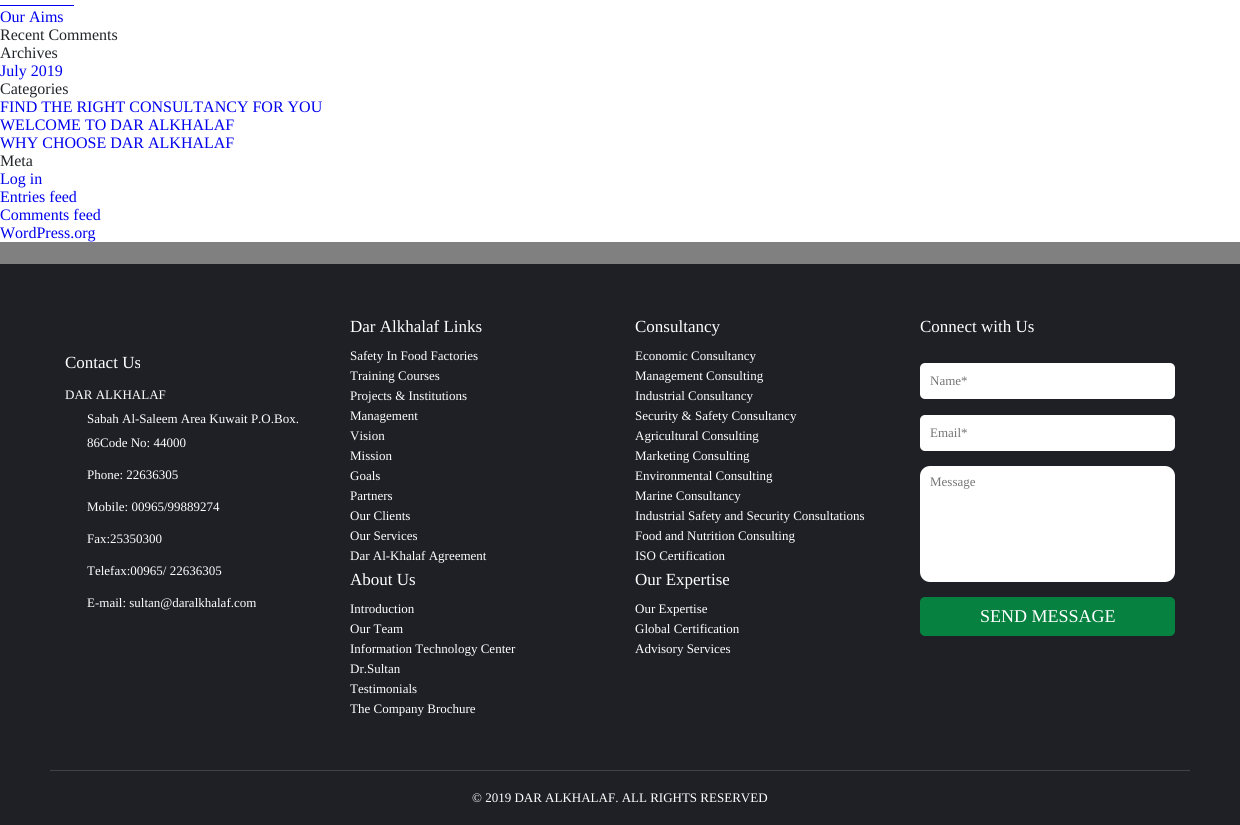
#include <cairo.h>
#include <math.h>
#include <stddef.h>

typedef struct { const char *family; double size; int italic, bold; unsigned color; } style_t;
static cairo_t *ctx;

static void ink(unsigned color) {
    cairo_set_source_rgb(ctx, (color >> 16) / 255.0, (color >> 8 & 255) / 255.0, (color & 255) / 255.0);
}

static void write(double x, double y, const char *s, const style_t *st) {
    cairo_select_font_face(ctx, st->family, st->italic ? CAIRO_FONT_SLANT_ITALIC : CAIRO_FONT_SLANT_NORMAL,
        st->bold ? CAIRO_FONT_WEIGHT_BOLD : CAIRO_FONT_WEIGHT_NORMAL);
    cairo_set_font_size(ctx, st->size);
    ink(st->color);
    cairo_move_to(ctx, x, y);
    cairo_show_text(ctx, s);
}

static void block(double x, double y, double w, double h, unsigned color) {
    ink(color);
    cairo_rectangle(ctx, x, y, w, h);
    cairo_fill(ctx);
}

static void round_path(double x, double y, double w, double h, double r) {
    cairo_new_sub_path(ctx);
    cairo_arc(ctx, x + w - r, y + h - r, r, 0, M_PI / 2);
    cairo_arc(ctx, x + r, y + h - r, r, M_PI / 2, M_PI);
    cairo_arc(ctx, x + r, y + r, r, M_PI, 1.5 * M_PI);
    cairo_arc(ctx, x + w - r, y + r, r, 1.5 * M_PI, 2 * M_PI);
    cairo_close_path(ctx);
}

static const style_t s1 = {"Liberation Serif", 16, 0, 0, 0x0000ee};
static const style_t s2 = {"Liberation Serif", 16, 0, 0, 0x212529};
static const style_t s3 = {"Liberation Serif", 17, 0, 0, 0xffffff};
static const style_t s4 = {"Liberation Serif", 13, 0, 0, 0xffffff};
static const style_t s5 = {"Liberation Serif", 13, 0, 0, 0x757575};
static const style_t s6 = {"Liberation Serif", 18, 0, 0, 0xffffff};

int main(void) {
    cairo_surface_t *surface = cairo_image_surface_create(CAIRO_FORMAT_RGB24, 1240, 825);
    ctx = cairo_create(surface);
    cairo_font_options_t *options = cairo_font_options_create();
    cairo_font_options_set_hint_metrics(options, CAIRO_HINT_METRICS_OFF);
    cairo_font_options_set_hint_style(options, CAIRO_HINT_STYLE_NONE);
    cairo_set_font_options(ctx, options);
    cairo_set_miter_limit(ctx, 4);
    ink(0xffffff);
    cairo_paint(ctx);
    block(0, 5, 74, 1, 0x0000ee);
    write(0, 22, "Our Aims", &s1);
    write(0, 40, "Recent Comments", &s2);
    write(0, 58, "Archives", &s2);
    write(0, 76, "July 2019", &s1);
    write(0, 94, "Categories", &s2);
    write(0, 112, "FIND THE RIGHT CONSULTANCY FOR YOU", &s1);
    write(0, 130, "WELCOME TO DAR ALKHALAF", &s1);
    write(0, 148, "WHY CHOOSE DAR ALKHALAF", &s1);
    write(0, 166, "Meta", &s2);
    write(0, 184, "Log in", &s1);
    write(0, 202, "Entries feed", &s1);
    write(0, 220, "Comments feed", &s1);
    write(0, 238, "WordPress.org", &s1);
    block(0, 242, 1240, 22, 0x808080);
    block(0, 264, 1240, 561, 0x1e2025);
    write(65, 368, "Contact Us", &s3);
    write(65, 399, "DAR ALKHALAF", &s4);
    write(87, 423, "Sabah Al-Saleem Area Kuwait P.O.Box.", &s4);
    write(87, 447, "86Code No: 44000", &s4);
    write(87, 479, "Phone: 22636305", &s4);
    write(87, 511, "Mobile: 00965/99889274", &s4);
    write(87, 543, "Fax:25350300", &s4);
    write(87, 575, "Telefax:00965/ 22636305", &s4);
    write(87, 607, "E-mail: sultan@daralkhalaf.com", &s4);
    write(350, 332, "Dar Alkhalaf Links", &s3);
    write(350, 360, "Safety In Food Factories", &s4);
    write(350, 380, "Training Courses", &s4);
    write(350, 400, "Projects & Institutions", &s4);
    write(350, 420, "Management", &s4);
    write(350, 440, "Vision", &s4);
    write(350, 460, "Mission", &s4);
    write(350, 480, "Goals", &s4);
    write(350, 500, "Partners", &s4);
    write(350, 520, "Our Clients", &s4);
    write(350, 540, "Our Services", &s4);
    write(350, 560, "Dar Al-Khalaf Agreement", &s4);
    write(350, 585, "About Us", &s3);
    write(350, 613, "Introduction", &s4);
    write(350, 633, "Our Team", &s4);
    write(350, 653, "Information Technology Center", &s4);
    write(350, 673, "Dr.Sultan", &s4);
    write(350, 693, "Testimonials", &s4);
    write(350, 713, "The Company Brochure", &s4);
    write(635, 332, "Consultancy", &s3);
    write(635, 360, "Economic Consultancy", &s4);
    write(635, 380, "Management Consulting", &s4);
    write(635, 400, "Industrial Consultancy", &s4);
    write(635, 420, "Security & Safety Consultancy", &s4);
    write(635, 440, "Agricultural Consulting", &s4);
    write(635, 460, "Marketing Consulting", &s4);
    write(635, 480, "Environmental Consulting", &s4);
    write(635, 500, "Marine Consultancy", &s4);
    write(635, 520, "Industrial Safety and Security Consultations", &s4);
    write(635, 540, "Food and Nutrition Consulting", &s4);
    write(635, 560, "ISO Certification", &s4);
    write(635, 585, "Our Expertise", &s3);
    write(635, 613, "Our Expertise", &s4);
    write(635, 633, "Global Certification", &s4);
    write(635, 653, "Advisory Services", &s4);
    write(920, 332, "Connect with Us", &s3);
    round_path(920, 363, 255, 36, 5);
    cairo_fill(ctx);
    write(930, 385, "Name*", &s5);
    ink(0xffffff);
    round_path(920, 415, 255, 36, 5);
    cairo_fill(ctx);
    write(930, 437, "Email*", &s5);
    ink(0xffffff);
    round_path(920, 466, 255, 116, 10);
    cairo_fill(ctx);
    write(930, 486, "Message", &s5);
    ink(0x068140);
    round_path(920, 597, 255, 39, 5);
    cairo_fill(ctx);
    write(980, 622, "SEND MESSAGE", &s6);
    block(50, 770, 1140, 1, 0x3f4248);
    write(472, 802, "© 2019 DAR ALKHALAF. ALL RIGHTS RESERVED", &s4);
    cairo_surface_write_to_png(surface, "screenshot.png");
    cairo_font_options_destroy(options);
    cairo_destroy(ctx);
    cairo_surface_destroy(surface);
    return 0;
}
